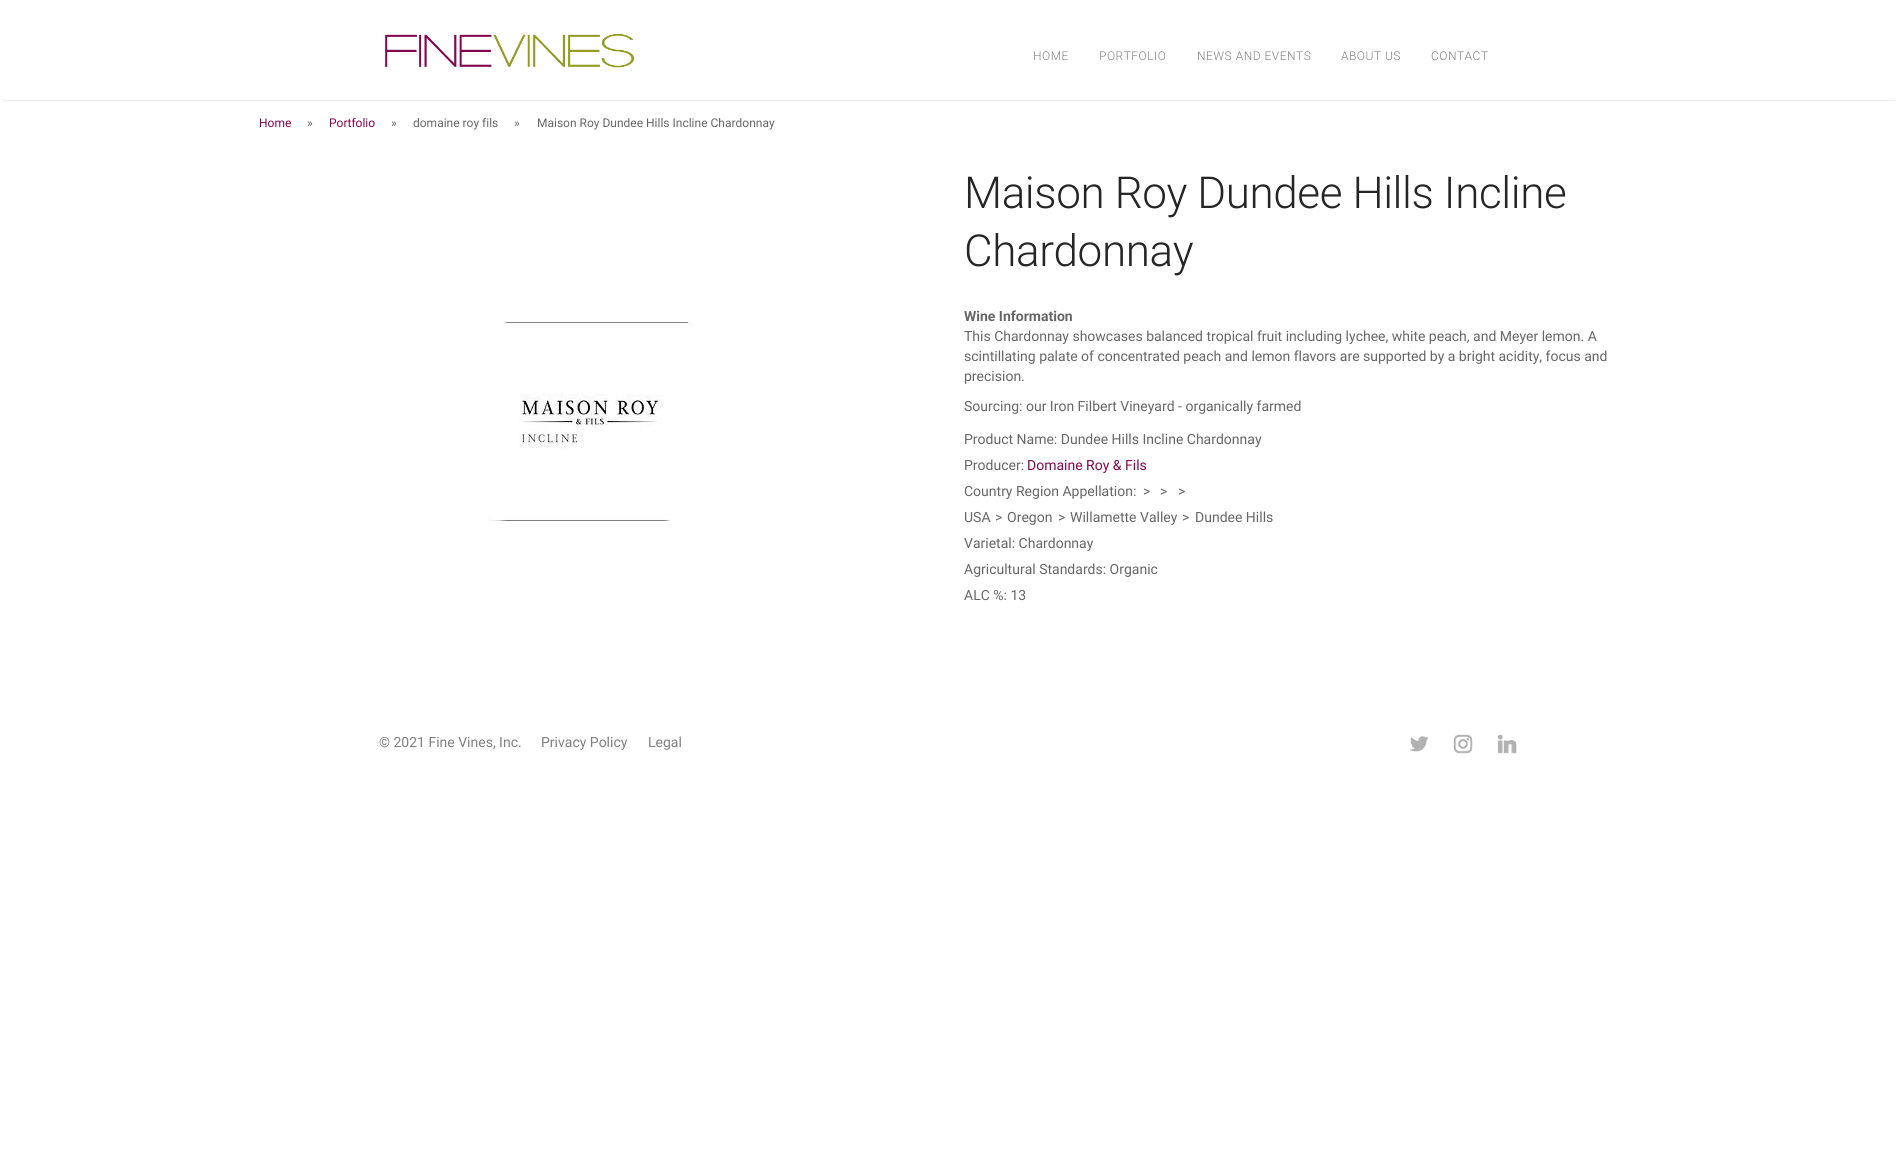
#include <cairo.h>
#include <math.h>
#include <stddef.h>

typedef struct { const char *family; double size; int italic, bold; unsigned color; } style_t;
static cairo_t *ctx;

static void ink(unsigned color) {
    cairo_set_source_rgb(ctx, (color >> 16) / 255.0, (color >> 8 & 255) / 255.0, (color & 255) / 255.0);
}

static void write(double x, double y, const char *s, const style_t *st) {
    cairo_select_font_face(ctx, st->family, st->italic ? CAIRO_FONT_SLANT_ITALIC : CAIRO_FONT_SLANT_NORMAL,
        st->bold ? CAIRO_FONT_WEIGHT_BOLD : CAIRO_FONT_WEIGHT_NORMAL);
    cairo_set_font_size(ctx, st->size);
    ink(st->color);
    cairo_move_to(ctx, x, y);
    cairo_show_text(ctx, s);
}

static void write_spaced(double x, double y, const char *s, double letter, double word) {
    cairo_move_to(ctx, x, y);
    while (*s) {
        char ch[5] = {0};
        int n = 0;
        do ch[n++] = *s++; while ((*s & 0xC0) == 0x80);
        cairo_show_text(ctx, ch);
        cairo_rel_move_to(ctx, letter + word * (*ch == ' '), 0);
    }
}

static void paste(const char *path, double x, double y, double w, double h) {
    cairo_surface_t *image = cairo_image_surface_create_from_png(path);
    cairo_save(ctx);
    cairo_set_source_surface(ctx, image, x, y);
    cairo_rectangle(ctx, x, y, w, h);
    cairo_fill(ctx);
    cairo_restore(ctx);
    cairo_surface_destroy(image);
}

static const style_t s1 = {"Roboto", 12, 0, 0, 0x83064f};
static const style_t s2 = {"Roboto", 12, 0, 0, 0x666666};
static const style_t s3 = {"Roboto", 14, 0, 1, 0x666666};
static const style_t s4 = {"Roboto", 14, 0, 0, 0x666666};
static const style_t s5 = {"Roboto", 14, 0, 0, 0x83064f};
static const style_t s6 = {"Roboto", 14, 0, 0, 0x808080};

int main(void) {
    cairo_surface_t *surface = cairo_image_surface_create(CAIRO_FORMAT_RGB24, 1897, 1170);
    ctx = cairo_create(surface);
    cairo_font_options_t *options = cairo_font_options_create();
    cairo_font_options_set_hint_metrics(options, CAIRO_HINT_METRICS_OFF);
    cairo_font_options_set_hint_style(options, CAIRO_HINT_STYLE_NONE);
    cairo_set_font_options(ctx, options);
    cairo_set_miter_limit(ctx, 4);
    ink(0xffffff);
    cairo_paint(ctx);
    cairo_new_path(ctx);
    cairo_move_to(ctx, 1895.5, 99.5);
    cairo_line_to(ctx, 1893, 100.5);
    cairo_line_to(ctx, 4, 100.5);
    cairo_line_to(ctx, 1.5, 99.5);
    ink(0xeeeeee);
    cairo_set_line_width(ctx, 1);
    cairo_stroke(ctx);
    paste("pic1.png", 385, 33, 250, 35);
    cairo_select_font_face(ctx, "Roboto Light", CAIRO_FONT_SLANT_NORMAL, CAIRO_FONT_WEIGHT_NORMAL);
    cairo_set_font_size(ctx, 12);
    ink(0x808080);
    write_spaced(1033, 60, "HOME", 0.5, 0);
    write_spaced(1099, 60, "PORTFOLIO", 0.5, 0);
    write_spaced(1197, 60, "NEWS AND EVENTS", 0.5, 0);
    write_spaced(1341, 60, "ABOUT US", 0.5, 0);
    write_spaced(1431, 60, "CONTACT", 0.5, 0);
    write(259, 127, "Home", &s1);
    write(307, 127, "»", &s2);
    write(329, 127, "Portfolio", &s1);
    write(391, 127, "»", &s2);
    write(413, 127, "domaine roy fils", &s2);
    write(514, 127, "»", &s2);
    write(537, 127, "Maison Roy Dundee Hills Incline Chardonnay", &s2);
    paste("pic2.png", 487, 320, 208, 205);
    cairo_select_font_face(ctx, "Roboto Light", CAIRO_FONT_SLANT_NORMAL, CAIRO_FONT_WEIGHT_NORMAL);
    cairo_set_font_size(ctx, 44);
    ink(0x252525);
    write_spaced(964, 208, "Maison Roy Dundee Hills Incline", -0.4, 0);
    write_spaced(964, 266, "Chardonnay", -0.4, 0);
    write(964, 321, "Wine Information", &s3);
    write(964, 341, "This Chardonnay showcases balanced tropical fruit including lychee, white peach, and Meyer lemon. A", &s4);
    write(964, 361, "scintillating palate of concentrated peach and lemon flavors are supported by a bright acidity, focus and", &s4);
    write(964, 381, "precision.", &s4);
    write(964, 411, "Sourcing: our Iron Filbert Vineyard - organically farmed", &s4);
    write(964, 444, "Product Name: Dundee Hills Incline Chardonnay", &s4);
    write(964, 470, "Producer:", &s4);
    write(1027, 470, "Domaine Roy & Fils", &s5);
    write(964, 496, "Country Region Appellation:", &s4);
    write(1143, 496, ">", &s4);
    write(1160, 496, ">", &s4);
    write(1178, 496, ">", &s4);
    write(964, 522, "USA", &s4);
    write(995, 522, ">", &s4);
    write(1007, 522, "Oregon", &s4);
    write(1058, 522, ">", &s4);
    write(1070, 522, "Willamette Valley", &s4);
    write(1182, 522, ">", &s4);
    write(1195, 522, "Dundee Hills", &s4);
    write(964, 548, "Varietal: Chardonnay", &s4);
    write(964, 574, "Agricultural Standards: Organic", &s4);
    write(964, 600, "ALC %: 13", &s4);
    write(379, 747, "© 2021 Fine Vines, Inc.", &s6);
    write(541, 747, "Privacy Policy", &s6);
    write(648, 747, "Legal", &s6);
    paste("pic3.png", 1410, 736, 18, 16);
    paste("pic4.png", 1453, 734, 20, 20);
    paste("pic5.png", 1497, 734, 20, 20);
    cairo_surface_write_to_png(surface, "screenshot.png");
    cairo_font_options_destroy(options);
    cairo_destroy(ctx);
    cairo_surface_destroy(surface);
    return 0;
}
